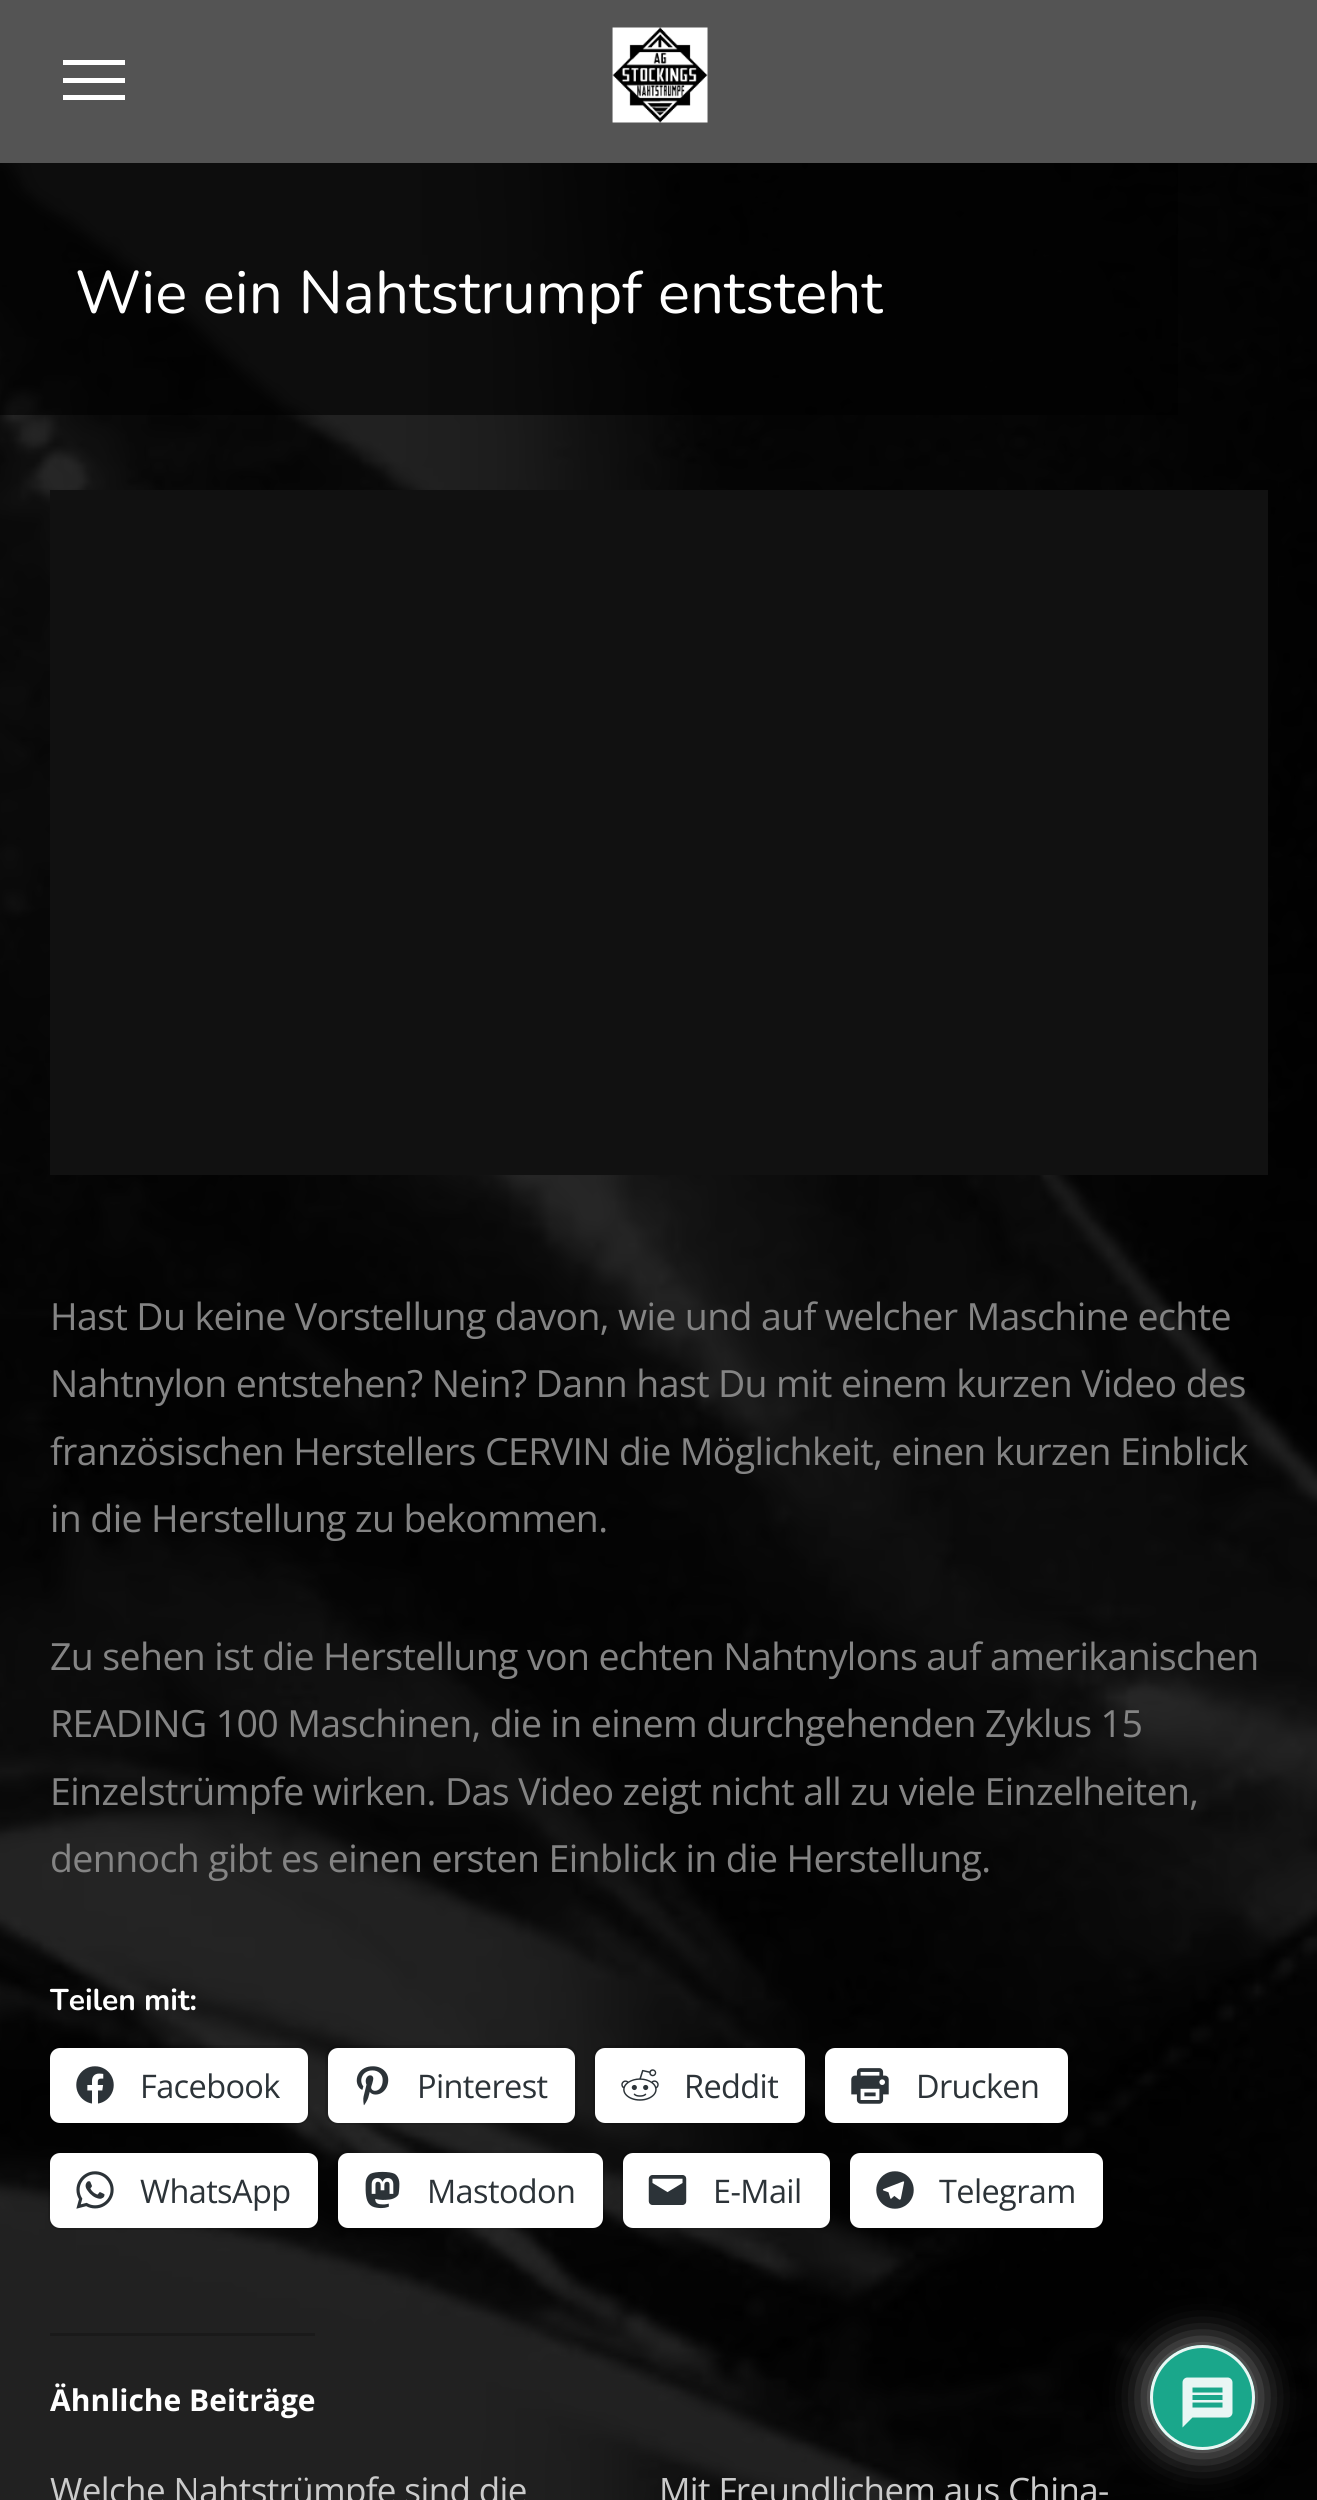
#include <cairo.h>
#include <math.h>
#include <stddef.h>

typedef struct { const char *family; double size; int italic, bold; unsigned color; } style_t;
static cairo_t *ctx;

static void ink(unsigned color) {
    cairo_set_source_rgb(ctx, (color >> 16) / 255.0, (color >> 8 & 255) / 255.0, (color & 255) / 255.0);
}

static void write(double x, double y, const char *s, const style_t *st) {
    cairo_select_font_face(ctx, st->family, st->italic ? CAIRO_FONT_SLANT_ITALIC : CAIRO_FONT_SLANT_NORMAL,
        st->bold ? CAIRO_FONT_WEIGHT_BOLD : CAIRO_FONT_WEIGHT_NORMAL);
    cairo_set_font_size(ctx, st->size);
    ink(st->color);
    cairo_move_to(ctx, x, y);
    cairo_show_text(ctx, s);
}

static void write_spaced(double x, double y, const char *s, double letter, double word) {
    cairo_move_to(ctx, x, y);
    while (*s) {
        char ch[5] = {0};
        int n = 0;
        do ch[n++] = *s++; while ((*s & 0xC0) == 0x80);
        cairo_show_text(ctx, ch);
        cairo_rel_move_to(ctx, letter + word * (*ch == ' '), 0);
    }
}

static void block(double x, double y, double w, double h, unsigned color) {
    ink(color);
    cairo_rectangle(ctx, x, y, w, h);
    cairo_fill(ctx);
}

static void round_path(double x, double y, double w, double h, double r) {
    cairo_new_sub_path(ctx);
    cairo_arc(ctx, x + w - r, y + h - r, r, 0, M_PI / 2);
    cairo_arc(ctx, x + r, y + h - r, r, M_PI / 2, M_PI);
    cairo_arc(ctx, x + r, y + r, r, M_PI, 1.5 * M_PI);
    cairo_arc(ctx, x + w - r, y + r, r, 1.5 * M_PI, 2 * M_PI);
    cairo_close_path(ctx);
}

static void blur_box(double x, double y, double w, double h, double r, double blur, double alpha) {
    cairo_push_group_with_content(ctx, CAIRO_CONTENT_ALPHA);
    cairo_set_operator(ctx, CAIRO_OPERATOR_SOURCE);
    for (int i = 15; i >= -15 && fmin(w, h) + blur * i / 3 > 0; i -= 2) {
        double e = blur * i / 6;
        cairo_set_source_rgba(ctx, 0, 0, 0, alpha * erfc((i - 1) / 8.5) / 2);
        round_path(x - e, y - e, w + 2 * e, h + 2 * e, fmax(0, fmin(r + e + blur * .6, fmin(w, h) / 2 + e)));
        cairo_fill(ctx);
    }
    cairo_pattern_t *soft = cairo_pop_group(ctx);
    cairo_mask(ctx, soft);
    cairo_pattern_destroy(soft);
}

static void paste(const char *path, double x, double y, double w, double h) {
    cairo_surface_t *image = cairo_image_surface_create_from_png(path);
    cairo_save(ctx);
    cairo_set_source_surface(ctx, image, x, y);
    cairo_rectangle(ctx, x, y, w, h);
    cairo_fill(ctx);
    cairo_restore(ctx);
    cairo_surface_destroy(image);
}

static const style_t s1 = {"Nunito", 30, 0, 1, 0xffffff};
static const style_t s2 = {"Open Sans", 30, 0, 1, 0xffffff};

int main(void) {
    cairo_surface_t *surface = cairo_image_surface_create(CAIRO_FORMAT_RGB24, 1317, 2500);
    ctx = cairo_create(surface);
    cairo_font_options_t *options = cairo_font_options_create();
    cairo_font_options_set_hint_metrics(options, CAIRO_HINT_METRICS_OFF);
    cairo_font_options_set_hint_style(options, CAIRO_HINT_STYLE_NONE);
    cairo_set_font_options(ctx, options);
    cairo_set_miter_limit(ctx, 4);
    ink(0xffffff);
    cairo_paint(ctx);
    block(0, 0, 1317, 163, 0x545454);
    paste("pic1.png", 612, 27, 96, 96);
    block(63, 78, 62, 5, 0xffffff);
    block(63, 60, 62, 5, 0xffffff);
    block(63, 95, 62, 5, 0xffffff);
    paste("pic2.png", 0, 163, 1317, 2337);
    cairo_set_source_rgba(ctx, 0, 0, 0, 0.6);
    cairo_rectangle(ctx, 0, 163, 1178, 252);
    cairo_fill(ctx);
    cairo_select_font_face(ctx, "Nunito", CAIRO_FONT_SLANT_NORMAL, CAIRO_FONT_WEIGHT_NORMAL);
    cairo_set_font_size(ctx, 60);
    ink(0xffffff);
    write_spaced(75, 313, "Wie ein Nahtstrumpf entsteht", 0.1, 0);
    block(50, 490, 1218, 685, 0x111111);
    cairo_select_font_face(ctx, "Open Sans", CAIRO_FONT_SLANT_NORMAL, CAIRO_FONT_WEIGHT_NORMAL);
    cairo_set_font_size(ctx, 37.5);
    ink(0x848484);
    write_spaced(50, 1330, "Hast Du keine Vorstellung davon, wie und auf welcher Maschine echte", -0.62, 0);
    write_spaced(50, 1397, "Nahtnylon entstehen? Nein? Dann hast Du mit einem kurzen Video des", -0.62, 0);
    write_spaced(50, 1465, "französischen Herstellers CERVIN die Möglichkeit, einen kurzen Einblick", -0.62, 0);
    write_spaced(50, 1532, "in die Herstellung zu bekommen.", -0.62, 0);
    write_spaced(50, 1670, "Zu sehen ist die Herstellung von echten Nahtnylons auf amerikanischen", -0.62, 0);
    write_spaced(50, 1737, "READING 100 Maschinen, die in einem durchgehenden Zyklus 15", -0.62, 0);
    write_spaced(50, 1805, "Einzelstrümpfe wirken. Das Video zeigt nicht all zu viele Einzelheiten,", -0.62, 0);
    write_spaced(50, 1872, "dennoch gibt es einen ersten Einblick in die Herstellung.", -0.62, 0);
    write(50, 2010, "Teilen mit:", &s1);
    round_path(49.5, 2046.5, 259, 77, 11.5);
    cairo_set_source_rgba(ctx, 0, 0, 0, 0.12);
    cairo_set_line_width(ctx, 3);
    cairo_stroke(ctx);
    ink(0xffffff);
    round_path(50, 2048, 258, 75, 10);
    cairo_fill(ctx);
    paste("pic3.png", 76, 2066, 38, 38);
    cairo_select_font_face(ctx, "Open Sans", CAIRO_FONT_SLANT_NORMAL, CAIRO_FONT_WEIGHT_NORMAL);
    cairo_set_font_size(ctx, 32.5);
    ink(0x2c3338);
    write_spaced(140, 2098, "Facebook", -0.62, 0);
    round_path(326.5, 2046.5, 250, 77, 11.5);
    cairo_set_source_rgba(ctx, 0, 0, 0, 0.12);
    cairo_stroke(ctx);
    ink(0xffffff);
    round_path(328, 2048, 247, 75, 10);
    cairo_fill(ctx);
    paste("pic4.png", 356, 2066, 33, 40);
    ink(0x2c3338);
    write_spaced(417, 2098, "Pinterest", -0.62, 0);
    round_path(594.5, 2046.5, 212, 77, 11.5);
    cairo_set_source_rgba(ctx, 0, 0, 0, 0.12);
    cairo_stroke(ctx);
    ink(0xffffff);
    round_path(595, 2048, 210, 75, 10);
    cairo_fill(ctx);
    paste("pic5.png", 621, 2069, 38, 32);
    ink(0x2c3338);
    write_spaced(684, 2098, "Reddit", -0.62, 0);
    ink(0xffffff);
    round_path(825, 2048, 243, 75, 10);
    cairo_fill(ctx);
    paste("pic6.png", 851, 2068, 38, 36);
    ink(0x2c3338);
    write_spaced(916, 2098, "Drucken", -0.62, 0);
    round_path(49.5, 2151.5, 269, 77, 11.5);
    cairo_set_source_rgba(ctx, 0, 0, 0, 0.12);
    cairo_stroke(ctx);
    ink(0xffffff);
    round_path(50, 2153, 268, 75, 10);
    cairo_fill(ctx);
    paste("pic7.png", 76, 2171, 38, 38);
    ink(0x2c3338);
    write_spaced(140, 2203, "WhatsApp", -0.62, 0);
    round_path(336.5, 2151.5, 267, 77, 11.5);
    cairo_set_source_rgba(ctx, 0, 0, 0, 0.12);
    cairo_stroke(ctx);
    ink(0xffffff);
    round_path(338, 2153, 265, 75, 10);
    cairo_fill(ctx);
    paste("pic8.png", 365, 2171, 35, 38);
    ink(0x2c3338);
    write_spaced(427, 2203, "Mastodon", -0.62, 0);
    round_path(621.5, 2151.5, 210, 77, 11.5);
    cairo_set_source_rgba(ctx, 0, 0, 0, 0.12);
    cairo_stroke(ctx);
    ink(0xffffff);
    round_path(623, 2153, 207, 75, 10);
    cairo_fill(ctx);
    paste("pic9.png", 648, 2175, 39, 30);
    ink(0x2c3338);
    write_spaced(713, 2203, "E-Mail", -0.62, 0);
    ink(0xffffff);
    round_path(850, 2153, 253, 75, 10);
    cairo_fill(ctx);
    paste("pic10.png", 876, 2171, 38, 38);
    ink(0x2c3338);
    write_spaced(939, 2203, "Telegram", -0.62, 0);
    block(50, 2333, 265, 3, 0x1a1a1a);
    write(50, 2411, "Ähnliche Beiträge", &s2);
    cairo_select_font_face(ctx, "Open Sans", CAIRO_FONT_SLANT_NORMAL, CAIRO_FONT_WEIGHT_NORMAL);
    cairo_set_font_size(ctx, 35);
    ink(0xcbcbcb);
    write_spaced(50, 2503, "Welche Nahtstrümpfe sind die", -0.62, 0);
    write_spaced(659, 2503, "Mit Freundlichem aus China-", -0.62, 0);
    cairo_save(ctx);
    cairo_set_fill_rule(ctx, CAIRO_FILL_RULE_EVEN_ODD);
    cairo_new_path(ctx);
    cairo_move_to(ctx, 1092, 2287);
    cairo_line_to(ctx, 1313, 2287);
    cairo_line_to(ctx, 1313, 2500);
    cairo_line_to(ctx, 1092, 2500);
    cairo_close_path(ctx);
    cairo_move_to(ctx, 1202.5, 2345);
    cairo_curve_to(ctx, 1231.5, 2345, 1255, 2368.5, 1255, 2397.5);
    cairo_curve_to(ctx, 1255, 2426.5, 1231.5, 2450, 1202.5, 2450);
    cairo_curve_to(ctx, 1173.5, 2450, 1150, 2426.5, 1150, 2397.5);
    cairo_curve_to(ctx, 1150, 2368.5, 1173.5, 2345, 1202.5, 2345);
    cairo_close_path(ctx);
    cairo_clip(ctx);
    ink(0xaaaaaa);
    blur_box(1150, 2345, 105, 105, 52.5, 19, 0.9);
    cairo_restore(ctx);
    cairo_set_source_rgba(ctx, 0.114, 0.725, 0.604, 0.9);
    cairo_arc(ctx, 1202.5, 2397.5, 52.5, 0, 2 * M_PI);
    cairo_fill(ctx);
    cairo_arc(ctx, 1202.5, 2397.5, 51, 0, 2 * M_PI);
    cairo_set_source_rgba(ctx, 1, 1, 1, 0.9);
    cairo_stroke(ctx);
    paste("pic11.png", 1182, 2377, 51, 51);
    cairo_surface_write_to_png(surface, "screenshot.png");
    cairo_font_options_destroy(options);
    cairo_destroy(ctx);
    cairo_surface_destroy(surface);
    return 0;
}
